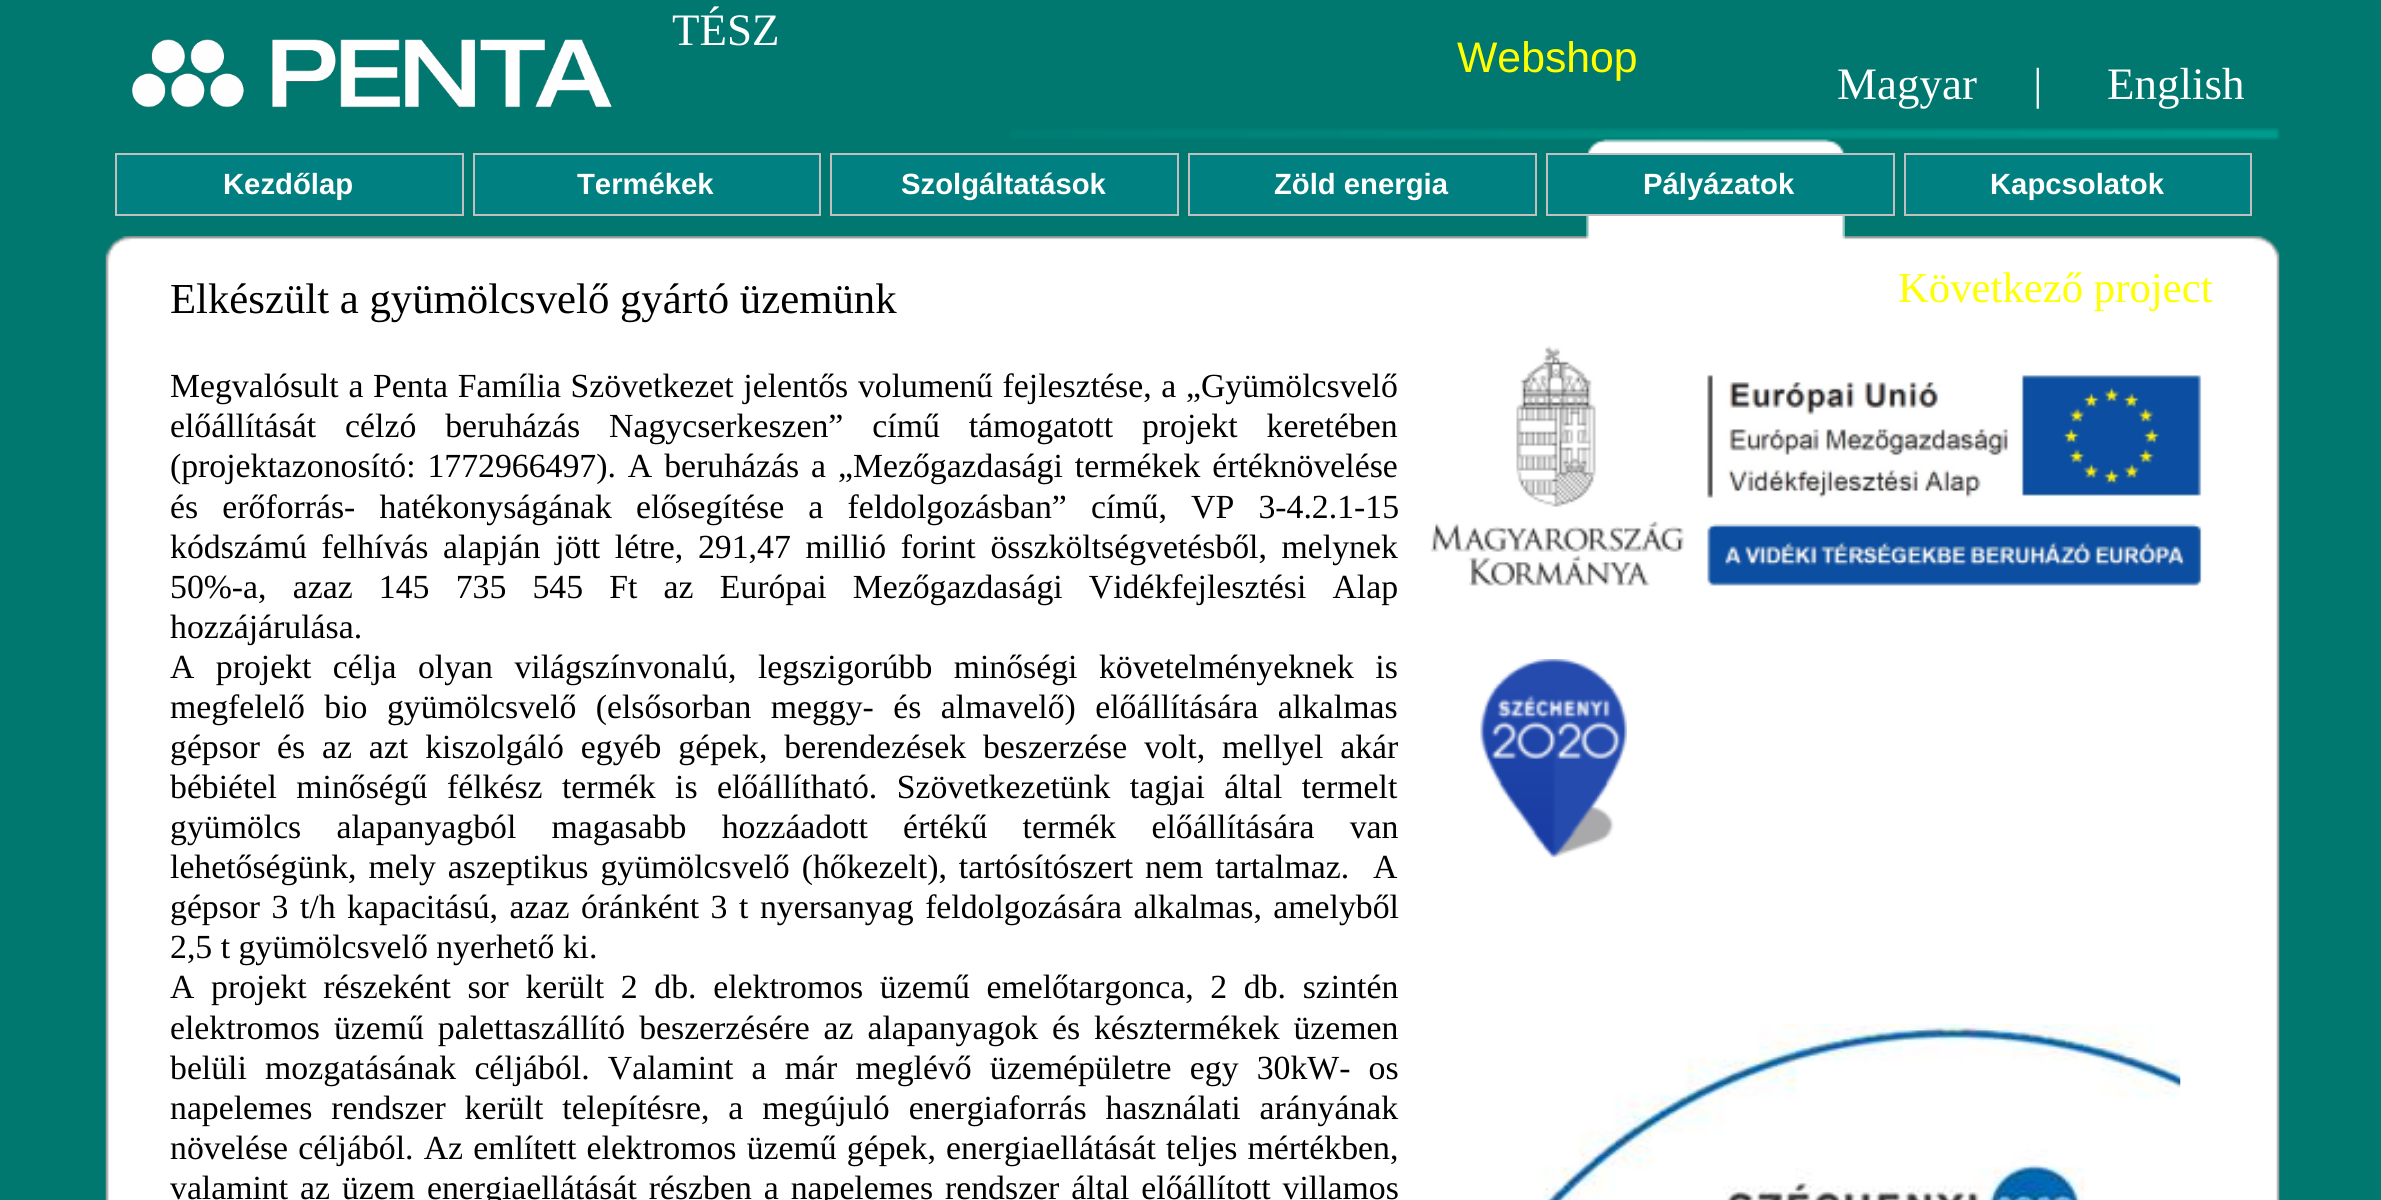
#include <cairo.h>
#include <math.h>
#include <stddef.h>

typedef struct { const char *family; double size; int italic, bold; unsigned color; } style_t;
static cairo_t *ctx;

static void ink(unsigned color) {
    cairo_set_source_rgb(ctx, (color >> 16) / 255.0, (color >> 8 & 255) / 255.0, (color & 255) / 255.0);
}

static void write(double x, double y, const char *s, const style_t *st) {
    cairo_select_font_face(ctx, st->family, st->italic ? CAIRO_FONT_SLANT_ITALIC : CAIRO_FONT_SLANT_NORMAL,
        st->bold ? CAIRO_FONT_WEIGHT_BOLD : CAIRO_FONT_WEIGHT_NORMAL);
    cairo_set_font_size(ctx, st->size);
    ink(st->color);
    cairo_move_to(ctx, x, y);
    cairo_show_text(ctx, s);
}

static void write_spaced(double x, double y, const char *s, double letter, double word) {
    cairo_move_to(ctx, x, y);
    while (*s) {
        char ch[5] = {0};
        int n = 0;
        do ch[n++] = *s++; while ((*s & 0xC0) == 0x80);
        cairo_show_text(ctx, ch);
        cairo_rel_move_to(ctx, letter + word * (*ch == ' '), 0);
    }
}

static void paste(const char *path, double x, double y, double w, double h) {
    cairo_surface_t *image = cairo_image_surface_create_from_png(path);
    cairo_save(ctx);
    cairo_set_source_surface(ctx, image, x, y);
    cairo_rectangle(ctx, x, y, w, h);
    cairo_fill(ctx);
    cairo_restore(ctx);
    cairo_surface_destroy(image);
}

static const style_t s1 = {"Liberation Serif", 45, 0, 0, 0xffffff};
static const style_t s2 = {"Liberation Sans", 42.75, 0, 0, 0xffff00};
static const style_t s3 = {"Liberation Sans", 29.25, 0, 1, 0xffffff};
static const style_t s4 = {"Liberation Serif", 42.75, 0, 0, 0x000000};
static const style_t s5 = {"Liberation Serif", 33.75, 0, 0, 0x000000};
static const style_t s6 = {"Liberation Serif", 42.75, 0, 0, 0xffff00};

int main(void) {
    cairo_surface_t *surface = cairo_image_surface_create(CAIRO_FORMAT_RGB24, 2381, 1200);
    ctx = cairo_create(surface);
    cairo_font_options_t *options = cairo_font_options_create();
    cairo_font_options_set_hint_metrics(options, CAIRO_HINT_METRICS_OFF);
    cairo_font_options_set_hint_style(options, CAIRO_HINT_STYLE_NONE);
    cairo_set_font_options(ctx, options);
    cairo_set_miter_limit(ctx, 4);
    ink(0x00786f);
    cairo_paint(ctx);
    write(672, 45, "TÉSZ", &s1);
    paste("pic1.png", 132, 39, 480, 69);
    write(1457, 72, "Webshop", &s2);
    write(1837, 99, "Magyar     |", &s1);
    write(2107, 99, "English", &s1);
    paste("pic2.png", 1011, 128, 1269, 12);
    paste("pic4.png", 105, 236, 2175, 964);
    paste("pic3.png", 1586, 139, 259, 101);
    ink(0x008080);
    cairo_rectangle(ctx, 116, 154, 347, 61);
    cairo_fill_preserve(ctx);
    ink(0xc0c0c0);
    cairo_stroke(ctx);
    write(223, 194, "Kezdőlap", &s3);
    ink(0x008080);
    cairo_rectangle(ctx, 474, 154, 346, 61);
    cairo_fill_preserve(ctx);
    ink(0xc0c0c0);
    cairo_stroke(ctx);
    write(577, 194, "Termékek", &s3);
    ink(0x008080);
    cairo_rectangle(ctx, 831, 154, 347, 61);
    cairo_fill_preserve(ctx);
    ink(0xc0c0c0);
    cairo_stroke(ctx);
    write(901, 194, "Szolgáltatások", &s3);
    ink(0x008080);
    cairo_rectangle(ctx, 1189, 154, 347, 61);
    cairo_fill_preserve(ctx);
    ink(0xc0c0c0);
    cairo_stroke(ctx);
    write(1274, 194, "Zöld energia", &s3);
    ink(0x008080);
    cairo_rectangle(ctx, 1547, 154, 347, 61);
    cairo_fill_preserve(ctx);
    ink(0xc0c0c0);
    cairo_stroke(ctx);
    write(1643, 194, "Pályázatok", &s3);
    ink(0x008080);
    cairo_rectangle(ctx, 1905, 154, 346, 61);
    cairo_fill_preserve(ctx);
    ink(0xc0c0c0);
    cairo_stroke(ctx);
    write(1990, 194, "Kapcsolatok", &s3);
    write(170, 313, "Elkészült a gyümölcsvelő gyártó üzemünk", &s4);
    cairo_set_font_size(ctx, 33.75);
    write_spaced(170, 397, "Megvalósult a Penta Família Szövetkezet jelentős volumenű fejlesztése, a „Gyümölcsvelő", 0, 1.25);
    write_spaced(170, 437, "előállítását célzó beruházás Nagycserkeszen” című támogatott projekt keretében", 0, 20.5);
    write_spaced(170, 477, "(projektazonosító: 1772966497). A beruházás a „Mezőgazdasági termékek értéknövelése", 0, 3.5);
    write_spaced(170, 518, "és erőforrás- hatékonyságának elősegítése a feldolgozásban” című, VP 3-4.2.1-15", 0, 15.75);
    write_spaced(170, 558, "kódszámú felhívás alapján jött létre, 291,47 millió forint összköltségvetésből, melynek", 0, 6.25);
    write_spaced(170, 598, "50%-a, azaz 145 735 545 Ft az Európai Mezőgazdasági Vidékfejlesztési Alap", 0, 17.75);
    write(170, 638, "hozzájárulása.", &s5);
    write_spaced(170, 678, "A projekt célja olyan világszínvonalú, legszigorúbb minőségi követelményeknek is", 0, 13);
    write_spaced(170, 718, "megfelelő bio gyümölcsvelő (elsősorban meggy- és almavelő) előállítására alkalmas", 0, 11);
    write_spaced(170, 758, "gépsor és az azt kiszolgáló egyéb gépek, berendezések beszerzése volt, mellyel akár", 0, 8.5);
    write_spaced(170, 798, "bébiétel minőségű félkész termék is előállítható. Szövetkezetünk tagjai által termelt", 0, 11);
    write_spaced(170, 838, "gyümölcs alapanyagból magasabb hozzáadott értékű termék előállítására van", 0, 26.75);
    write_spaced(170, 878, "lehetőségünk, mely aszeptikus gyümölcsvelő (hőkezelt), tartósítószert nem tartalmaz.  A", 0, 3.5);
    write_spaced(170, 918, "gépsor 3 t/h kapacitású, azaz óránként 3 t nyersanyag feldolgozására alkalmas, amelyből", 0, 3.1);
    write(170, 958, "2,5 t gyümölcsvelő nyerhető ki.", &s5);
    write_spaced(170, 998, "A projekt részeként sor került 2 db. elektromos üzemű emelőtargonca, 2 db. szintén", 0, 8.25);
    write_spaced(170, 1039, "elektromos üzemű palettaszállító beszerzésére az alapanyagok és késztermékek üzemen", 0, 5.5);
    write_spaced(170, 1079, "belüli mozgatásának céljából. Valamint a már meglévő üzemépületre egy 30kW- os", 0, 9.75);
    write_spaced(170, 1119, "napelemes rendszer került telepítésre, a megújuló energiaforrás használati arányának", 0, 10.5);
    write_spaced(170, 1159, "növelése céljából. Az említett elektromos üzemű gépek, energiaellátását teljes mértékben,", 0, 1.75);
    write_spaced(170, 1199, "valamint az üzem energiaellátását részben a napelemes rendszer által előállított villamos", 0, 3.5);
    write(1898, 302, "Következő project", &s6);
    paste("pic5.png", 1430, 346, 773, 240);
    paste("pic6.png", 1480, 659, 147, 199);
    paste("pic7.png", 1543, 1023, 638, 177);
    cairo_surface_write_to_png(surface, "screenshot.png");
    cairo_font_options_destroy(options);
    cairo_destroy(ctx);
    cairo_surface_destroy(surface);
    return 0;
}
